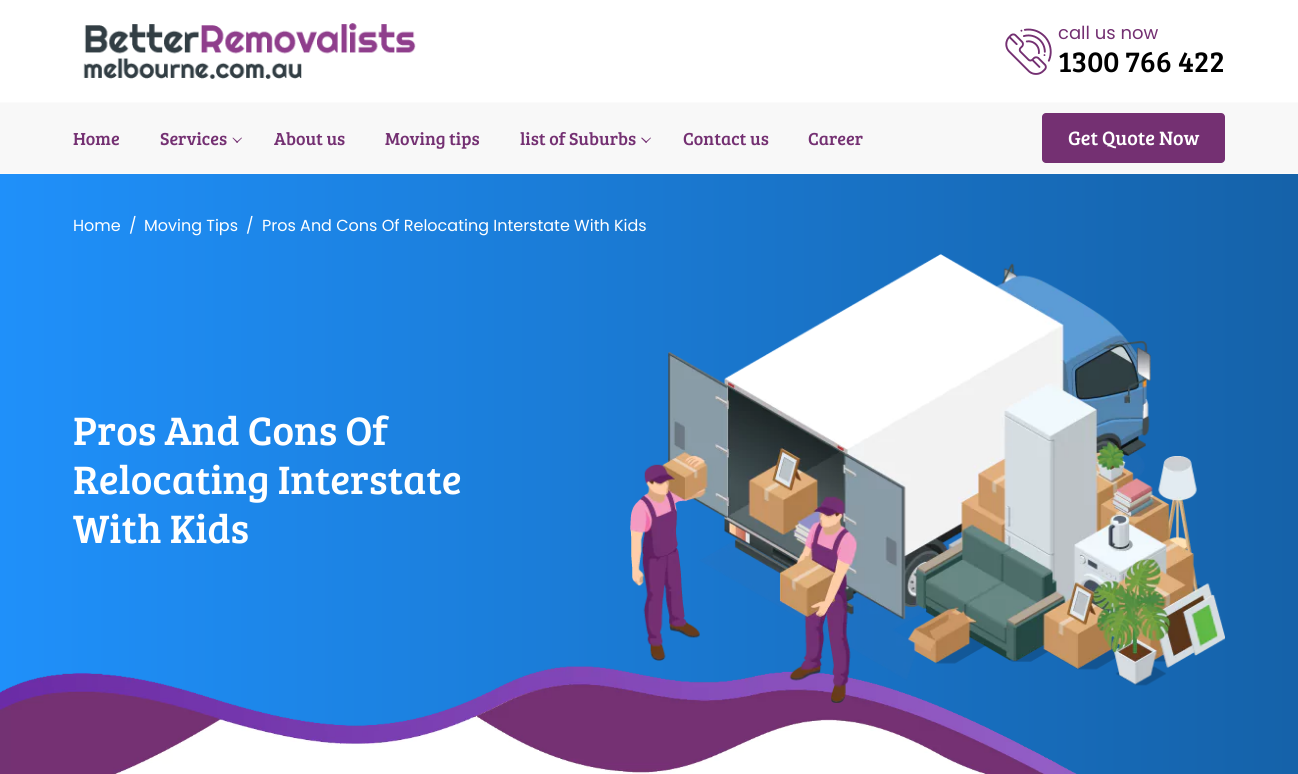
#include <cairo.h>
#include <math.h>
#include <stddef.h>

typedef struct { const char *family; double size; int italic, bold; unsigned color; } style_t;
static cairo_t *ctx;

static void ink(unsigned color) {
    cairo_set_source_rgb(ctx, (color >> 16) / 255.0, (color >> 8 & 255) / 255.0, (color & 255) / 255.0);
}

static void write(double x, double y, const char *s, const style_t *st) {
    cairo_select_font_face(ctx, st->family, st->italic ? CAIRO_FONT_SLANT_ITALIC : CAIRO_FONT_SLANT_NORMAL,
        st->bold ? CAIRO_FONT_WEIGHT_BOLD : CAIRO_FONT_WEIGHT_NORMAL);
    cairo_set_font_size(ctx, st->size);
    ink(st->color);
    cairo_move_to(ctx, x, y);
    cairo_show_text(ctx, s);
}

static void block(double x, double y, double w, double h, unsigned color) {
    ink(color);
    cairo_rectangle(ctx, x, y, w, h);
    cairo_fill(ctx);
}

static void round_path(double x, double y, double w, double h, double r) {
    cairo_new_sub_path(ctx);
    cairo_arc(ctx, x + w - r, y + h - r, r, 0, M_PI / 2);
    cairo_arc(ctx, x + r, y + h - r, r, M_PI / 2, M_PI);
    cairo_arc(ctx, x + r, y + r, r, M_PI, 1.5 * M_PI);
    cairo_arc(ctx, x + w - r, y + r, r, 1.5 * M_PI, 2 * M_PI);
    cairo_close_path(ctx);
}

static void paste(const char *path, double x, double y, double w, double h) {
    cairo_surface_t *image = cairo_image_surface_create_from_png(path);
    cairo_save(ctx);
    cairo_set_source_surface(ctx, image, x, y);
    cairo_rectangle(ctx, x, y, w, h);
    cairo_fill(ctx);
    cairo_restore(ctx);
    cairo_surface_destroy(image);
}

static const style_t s1 = {"Poppins", 18, 0, 0, 0x743072};
static const style_t s2 = {"Bree Serif", 30, 0, 0, 0x000000};
static const style_t s3 = {"Bree Serif", 18, 0, 0, 0x743072};
static const style_t s4 = {"Bree Serif", 20, 0, 0, 0xffffff};
static const style_t s5 = {"Poppins", 16, 0, 0, 0xffffff};
static const style_t s6 = {"Bree Serif", 41, 0, 0, 0xffffff};

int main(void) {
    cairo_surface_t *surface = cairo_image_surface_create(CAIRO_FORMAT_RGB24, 1298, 774);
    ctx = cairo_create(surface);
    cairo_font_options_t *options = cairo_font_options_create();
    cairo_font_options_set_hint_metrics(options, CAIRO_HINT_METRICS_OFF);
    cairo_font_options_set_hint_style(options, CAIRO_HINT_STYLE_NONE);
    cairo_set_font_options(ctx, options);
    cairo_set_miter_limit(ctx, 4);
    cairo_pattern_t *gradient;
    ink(0xffffff);
    cairo_paint(ctx);
    paste("pic1.png", 83, 23, 333, 56);
    paste("pic2.png", 1005, 28, 47, 47);
    write(1058, 39, "call us now", &s1);
    write(1058, 72, "1300 766 422", &s2);
    block(0, 103, 1298, 70, 0xf8f8f8);
    block(0, 102, 1298, 1, 0xfbfbfb);
    block(0, 173, 1298, 1, 0xfbfbfb);
    write(73, 145, "Home", &s3);
    write(160, 145, "Services", &s3);
    cairo_new_path(ctx);
    cairo_move_to(ctx, 241.5, 137.5);
    cairo_line_to(ctx, 242, 138);
    cairo_line_to(ctx, 237, 143);
    cairo_line_to(ctx, 236.5, 142);
    cairo_close_path(ctx);
    cairo_fill(ctx);
    cairo_new_path(ctx);
    cairo_move_to(ctx, 233, 137.5);
    cairo_line_to(ctx, 238, 142);
    cairo_line_to(ctx, 237, 143);
    cairo_line_to(ctx, 232.5, 138);
    cairo_close_path(ctx);
    cairo_fill(ctx);
    write(274, 145, "About us", &s3);
    write(385, 145, "Moving tips", &s3);
    write(520, 145, "list of Suburbs", &s3);
    cairo_new_path(ctx);
    cairo_move_to(ctx, 650.5, 137.5);
    cairo_line_to(ctx, 651, 138);
    cairo_line_to(ctx, 646, 143);
    cairo_line_to(ctx, 645.5, 142);
    cairo_close_path(ctx);
    cairo_fill(ctx);
    cairo_new_path(ctx);
    cairo_move_to(ctx, 642, 137.5);
    cairo_line_to(ctx, 647, 142);
    cairo_line_to(ctx, 646, 143);
    cairo_line_to(ctx, 641, 138);
    cairo_close_path(ctx);
    cairo_fill(ctx);
    write(683, 145, "Contact us", &s3);
    write(808, 145, "Career", &s3);
    round_path(1042, 113, 183, 50, 4);
    cairo_fill(ctx);
    write(1068, 145, "Get Quote Now", &s4);
    gradient = cairo_pattern_create_linear(0, 499, 1298, 499);
    cairo_pattern_add_color_stop_rgba(gradient, 0, 0.122, 0.565, 0.98, 1);
    cairo_pattern_add_color_stop_rgba(gradient, 1, 0.082, 0.384, 0.663, 1);
    cairo_set_source(ctx, gradient);
    cairo_pattern_destroy(gradient);
    cairo_rectangle(ctx, 0, 174, 1298, 600);
    cairo_fill(ctx);
    write(73, 231, "Home", &s5);
    write(129, 231, "/", &s5);
    write(144, 231, "Moving Tips", &s5);
    write(246, 231, "/", &s5);
    write(262, 231, "Pros And Cons Of Relocating Interstate With Kids", &s5);
    write(73, 445, "Pros And Cons Of", &s6);
    write(73, 494, "Relocating Interstate", &s6);
    write(73, 543, "With Kids", &s6);
    paste("pic4.png", 0, 666, 1077, 108);
    paste("pic3.png", 630, 254, 595, 449);
    cairo_surface_write_to_png(surface, "screenshot.png");
    cairo_font_options_destroy(options);
    cairo_destroy(ctx);
    cairo_surface_destroy(surface);
    return 0;
}
